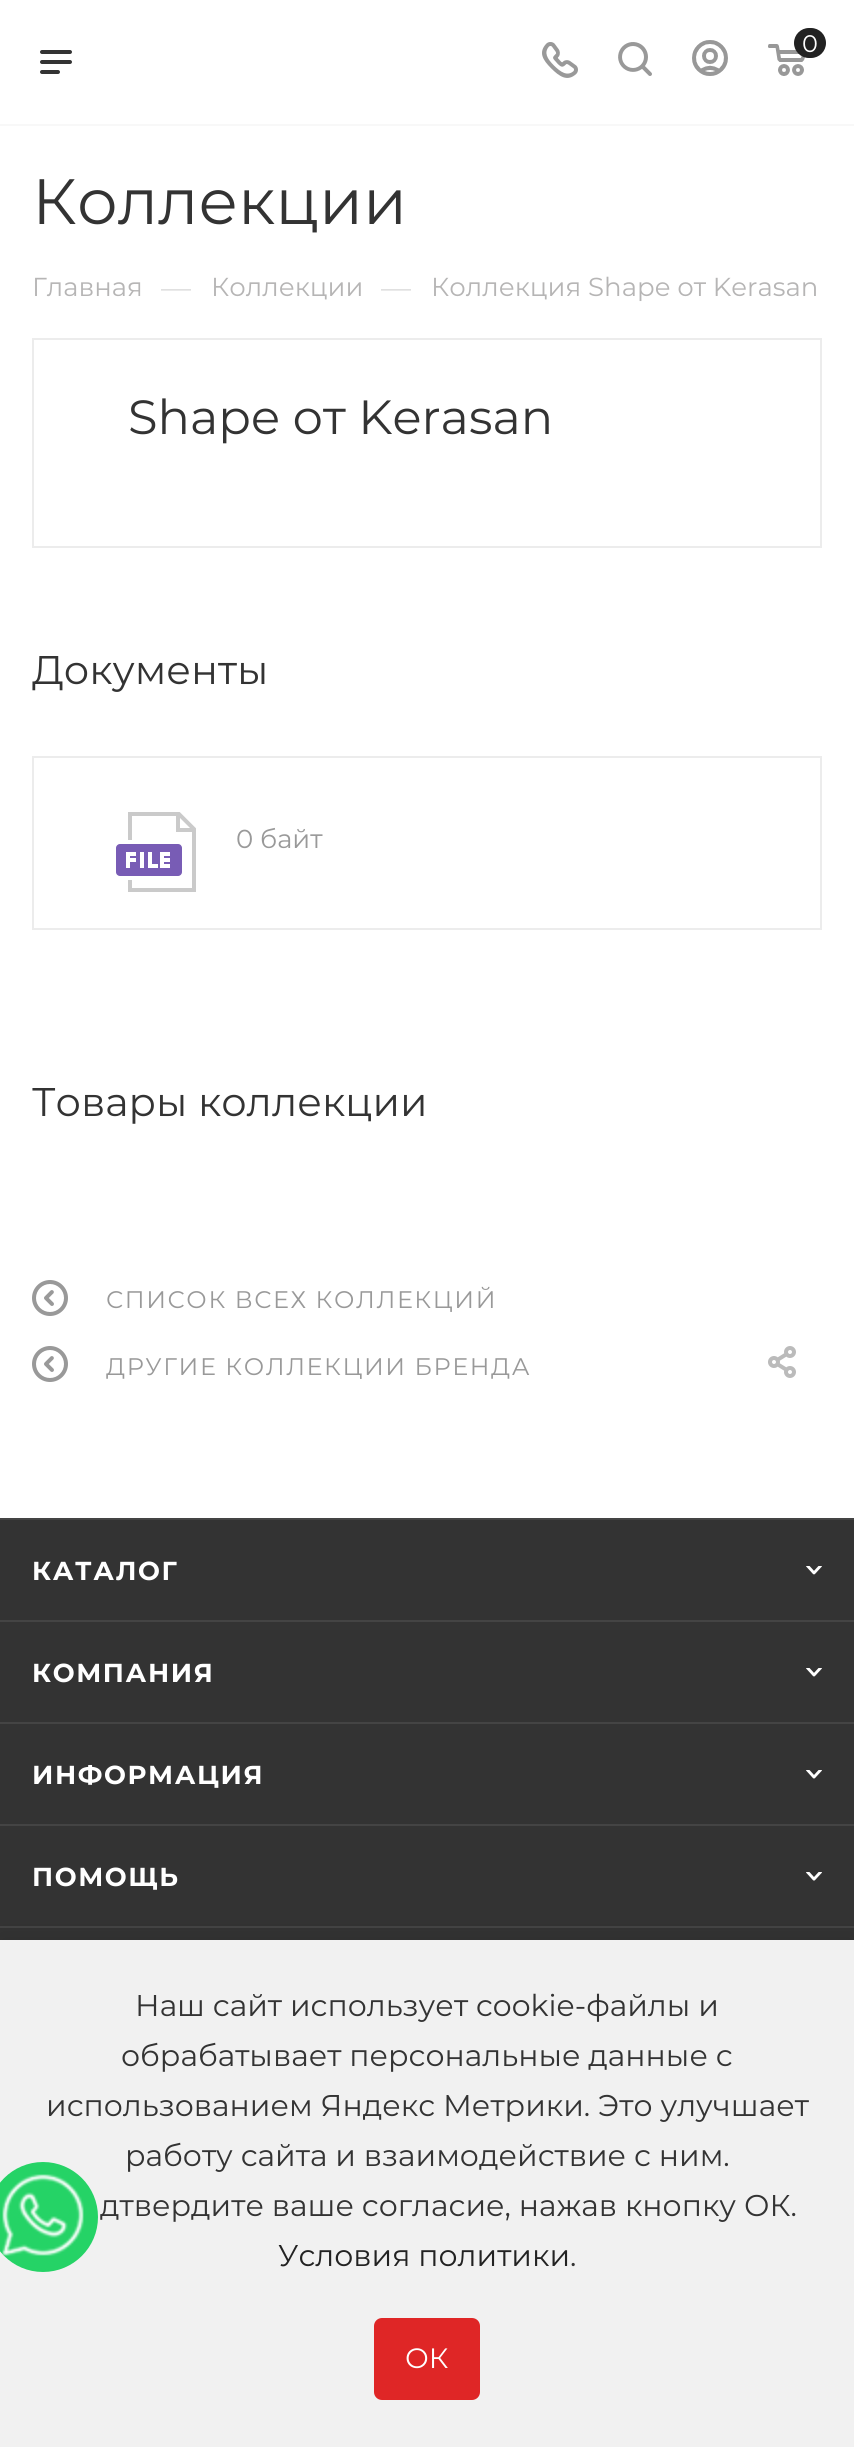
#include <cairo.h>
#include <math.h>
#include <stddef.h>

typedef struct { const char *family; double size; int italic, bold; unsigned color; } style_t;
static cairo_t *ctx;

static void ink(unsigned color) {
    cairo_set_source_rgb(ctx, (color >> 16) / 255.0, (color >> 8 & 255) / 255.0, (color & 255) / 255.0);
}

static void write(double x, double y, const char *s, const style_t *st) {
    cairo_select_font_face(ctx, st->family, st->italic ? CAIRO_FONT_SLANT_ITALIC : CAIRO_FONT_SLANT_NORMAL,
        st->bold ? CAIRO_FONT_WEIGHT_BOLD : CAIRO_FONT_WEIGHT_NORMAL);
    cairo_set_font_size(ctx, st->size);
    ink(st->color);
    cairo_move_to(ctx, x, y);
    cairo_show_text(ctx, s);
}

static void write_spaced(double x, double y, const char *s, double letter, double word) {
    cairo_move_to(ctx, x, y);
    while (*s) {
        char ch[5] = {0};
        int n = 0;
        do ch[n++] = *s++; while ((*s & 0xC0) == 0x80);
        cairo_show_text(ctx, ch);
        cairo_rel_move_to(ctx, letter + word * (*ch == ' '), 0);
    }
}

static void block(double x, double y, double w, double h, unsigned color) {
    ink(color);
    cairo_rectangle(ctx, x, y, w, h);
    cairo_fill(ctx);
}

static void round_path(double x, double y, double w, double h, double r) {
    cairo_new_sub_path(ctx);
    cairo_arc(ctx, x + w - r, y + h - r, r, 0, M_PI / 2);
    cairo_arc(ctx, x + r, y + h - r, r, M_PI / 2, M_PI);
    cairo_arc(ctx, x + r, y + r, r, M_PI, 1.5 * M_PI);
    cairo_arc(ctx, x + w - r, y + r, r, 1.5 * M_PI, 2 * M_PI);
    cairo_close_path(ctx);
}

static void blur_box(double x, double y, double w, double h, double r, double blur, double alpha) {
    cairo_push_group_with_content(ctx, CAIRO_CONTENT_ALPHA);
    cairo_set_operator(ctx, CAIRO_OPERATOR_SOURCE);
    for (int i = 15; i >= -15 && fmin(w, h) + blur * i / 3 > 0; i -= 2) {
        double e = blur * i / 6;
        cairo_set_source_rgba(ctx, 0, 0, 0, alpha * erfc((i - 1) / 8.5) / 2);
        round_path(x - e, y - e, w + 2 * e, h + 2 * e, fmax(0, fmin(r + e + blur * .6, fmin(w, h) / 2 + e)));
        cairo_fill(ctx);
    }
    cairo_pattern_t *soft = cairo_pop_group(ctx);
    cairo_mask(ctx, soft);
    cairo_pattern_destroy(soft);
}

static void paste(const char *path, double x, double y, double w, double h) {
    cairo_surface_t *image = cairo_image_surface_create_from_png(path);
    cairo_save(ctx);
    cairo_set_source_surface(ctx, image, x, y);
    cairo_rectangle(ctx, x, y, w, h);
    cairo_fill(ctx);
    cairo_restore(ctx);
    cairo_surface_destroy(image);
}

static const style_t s1 = {"Montserrat", 24, 0, 0, 0xffffff};
static const style_t s2 = {"Montserrat", 64, 0, 0, 0x333333};
static const style_t s3 = {"Montserrat", 26, 0, 0, 0xb6b5b5};
static const style_t s4 = {"Montserrat", 30, 0, 0, 0xdddddd};
static const style_t s5 = {"Montserrat", 48, 0, 0, 0x333333};
static const style_t s6 = {"Montserrat", 40, 0, 0, 0x333333};
static const style_t s7 = {"Montserrat", 26, 0, 0, 0x999999};
static const style_t s8 = {"Montserrat", 30, 0, 0, 0x333333};
static const style_t s9 = {"Montserrat", 30, 0, 0, 0x222222};
static const style_t s10 = {"Montserrat", 28, 0, 0, 0xffffff};

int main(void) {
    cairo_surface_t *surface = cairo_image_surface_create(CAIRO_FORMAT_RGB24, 854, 2447);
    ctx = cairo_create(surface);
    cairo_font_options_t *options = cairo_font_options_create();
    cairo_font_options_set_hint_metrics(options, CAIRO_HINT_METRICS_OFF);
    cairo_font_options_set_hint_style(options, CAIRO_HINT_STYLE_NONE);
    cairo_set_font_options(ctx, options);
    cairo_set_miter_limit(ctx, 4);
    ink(0xffffff);
    cairo_paint(ctx);
    block(0, 124, 854, 2, 0xf8f8f8);
    paste("pic1.png", 542, 42, 36, 36);
    paste("pic2.png", 618, 42, 34, 34);
    paste("pic3.png", 692, 40, 36, 36);
    paste("pic4.png", 768, 44, 37, 32);
    ink(0x222222);
    round_path(794, 28, 32, 30, 15);
    cairo_fill(ctx);
    write(802, 52, "0", &s1);
    paste("pic5.png", 40, 50, 32, 24);
    write(32, 224, "Коллекции", &s2);
    write(32, 296, "Главная", &s3);
    write(161, 298, "—", &s4);
    write(211, 296, "Коллекции", &s3);
    write(381, 298, "—", &s4);
    write(431, 296, "Коллекция Shape от Kerasan", &s3);
    cairo_rectangle(ctx, 33, 339, 788, 208);
    ink(0xececec);
    cairo_stroke(ctx);
    write(128, 434, "Shape от Kerasan", &s5);
    write(32, 684, "Документы", &s6);
    cairo_rectangle(ctx, 33, 757, 788, 172);
    ink(0xececec);
    cairo_stroke(ctx);
    paste("pic6.png", 116, 812, 80, 80);
    write(236, 848, "0 байт", &s7);
    write(32, 1116, "Товары коллекции", &s6);
    paste("pic7.png", 32, 1280, 36, 36);
    cairo_set_font_size(ctx, 24);
    ink(0x999999);
    write_spaced(106, 1308, "СПИСОК ВСЕХ КОЛЛЕКЦИЙ", 1.6, 0);
    paste("pic7.png", 32, 1346, 36, 36);
    write_spaced(106, 1375, "ДРУГИЕ КОЛЛЕКЦИИ БРЕНДА", 1.6, 0);
    paste("pic8.png", 768, 1346, 28, 32);
    block(0, 1520, 854, 420, 0x333333);
    block(0, 1518, 854, 2, 0x444444);
    block(0, 1620, 854, 2, 0x444444);
    cairo_select_font_face(ctx, "Montserrat", CAIRO_FONT_SLANT_NORMAL, CAIRO_FONT_WEIGHT_BOLD);
    cairo_set_font_size(ctx, 26);
    ink(0xffffff);
    write_spaced(32, 1580, "КАТАЛОГ", 1.6, 0);
    paste("pic9.png", 806, 1566, 16, 9);
    block(0, 1722, 854, 2, 0x444444);
    ink(0xffffff);
    write_spaced(32, 1682, "КОМПАНИЯ", 1.6, 0);
    paste("pic10.png", 806, 1668, 16, 9);
    block(0, 1824, 854, 2, 0x444444);
    ink(0xffffff);
    write_spaced(32, 1784, "ИНФОРМАЦИЯ", 1.6, 0);
    paste("pic11.png", 806, 1770, 16, 9);
    block(0, 1926, 854, 2, 0x444444);
    ink(0xffffff);
    write_spaced(32, 1886, "ПОМОЩЬ", 1.6, 0);
    paste("pic12.png", 806, 1872, 16, 9);
    ink(0x000000);
    blur_box(0, 1936, 854, 508, 0, 10, 0.1);
    block(0, 1940, 854, 507, 0xf1f1f1);
    ink(0x25d366);
    cairo_arc(ctx, 43, 2217, 55, 0, 2 * M_PI);
    cairo_fill(ctx);
    paste("pic13.png", 2, 2174, 82, 82);
    write(135, 2016, "Наш сайт использует cookie-файлы и", &s8);
    write(121, 2066, "обрабатывает персональные данные с", &s8);
    write(46, 2116, "использованием Яндекс Метрики. Это улучшает", &s8);
    write(125, 2166, "работу сайта и взаимодействие с ним.", &s8);
    write(100, 2216, "дтвердите ваше согласие, нажав кнопку ОК.", &s8);
    write(278, 2266, "Условия политики", &s9);
    write(570, 2266, ".", &s8);
    ink(0xdf2626);
    round_path(374, 2318, 106, 82, 8);
    cairo_fill(ctx);
    write(405, 2368, "ОК", &s10);
    cairo_surface_write_to_png(surface, "screenshot.png");
    cairo_font_options_destroy(options);
    cairo_destroy(ctx);
    cairo_surface_destroy(surface);
    return 0;
}
